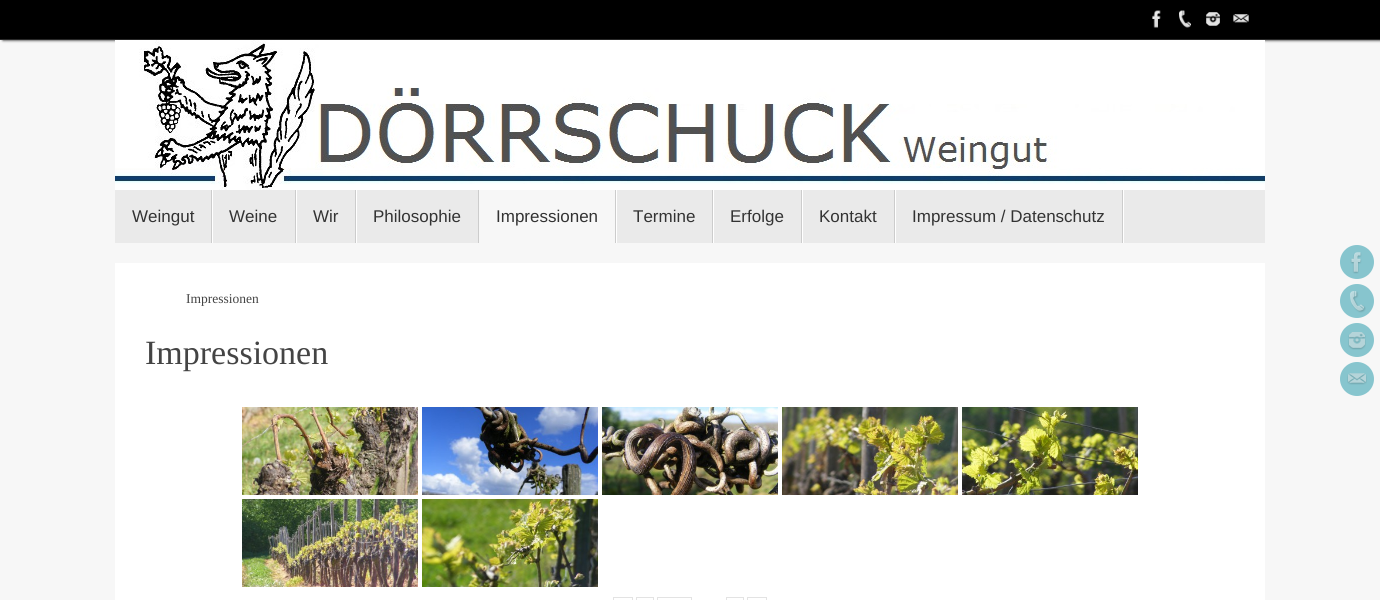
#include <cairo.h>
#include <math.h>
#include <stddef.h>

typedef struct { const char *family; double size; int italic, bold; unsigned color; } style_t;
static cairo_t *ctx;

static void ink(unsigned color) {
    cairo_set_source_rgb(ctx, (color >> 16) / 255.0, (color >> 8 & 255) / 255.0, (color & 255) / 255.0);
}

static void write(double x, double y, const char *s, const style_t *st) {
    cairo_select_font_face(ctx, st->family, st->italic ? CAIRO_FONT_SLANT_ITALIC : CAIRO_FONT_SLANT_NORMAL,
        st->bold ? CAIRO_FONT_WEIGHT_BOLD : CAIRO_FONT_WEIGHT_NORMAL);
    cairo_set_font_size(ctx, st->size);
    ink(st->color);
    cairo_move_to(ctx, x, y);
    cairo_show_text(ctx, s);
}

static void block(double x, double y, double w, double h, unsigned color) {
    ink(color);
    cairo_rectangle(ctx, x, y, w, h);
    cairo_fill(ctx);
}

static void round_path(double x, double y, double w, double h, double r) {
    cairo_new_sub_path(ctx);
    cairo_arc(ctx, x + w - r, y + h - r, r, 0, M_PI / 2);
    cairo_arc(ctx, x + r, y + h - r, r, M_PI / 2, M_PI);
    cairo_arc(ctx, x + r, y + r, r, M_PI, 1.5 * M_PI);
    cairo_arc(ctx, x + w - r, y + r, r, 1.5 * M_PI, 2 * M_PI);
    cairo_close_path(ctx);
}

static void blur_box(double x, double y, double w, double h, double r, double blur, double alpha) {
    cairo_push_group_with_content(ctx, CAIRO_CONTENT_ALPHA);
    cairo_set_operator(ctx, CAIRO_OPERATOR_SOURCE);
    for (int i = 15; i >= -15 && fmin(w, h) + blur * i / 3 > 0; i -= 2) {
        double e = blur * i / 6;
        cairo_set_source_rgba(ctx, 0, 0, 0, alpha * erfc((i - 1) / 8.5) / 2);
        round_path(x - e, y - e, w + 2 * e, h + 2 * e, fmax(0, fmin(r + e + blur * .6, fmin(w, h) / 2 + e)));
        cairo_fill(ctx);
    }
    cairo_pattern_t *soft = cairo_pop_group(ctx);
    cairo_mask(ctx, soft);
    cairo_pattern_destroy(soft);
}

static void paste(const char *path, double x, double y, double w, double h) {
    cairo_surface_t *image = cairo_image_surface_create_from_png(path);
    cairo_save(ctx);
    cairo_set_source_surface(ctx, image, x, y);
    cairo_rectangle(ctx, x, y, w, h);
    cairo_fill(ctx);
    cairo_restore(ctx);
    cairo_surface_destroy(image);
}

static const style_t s1 = {"Liberation Sans", 17, 0, 0, 0x333333};
static const style_t s2 = {"Liberation Serif", 13.5, 0, 0, 0x444444};
static const style_t s3 = {"Liberation Serif", 34, 0, 0, 0x444444};

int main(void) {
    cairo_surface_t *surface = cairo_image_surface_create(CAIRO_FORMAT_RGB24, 1380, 600);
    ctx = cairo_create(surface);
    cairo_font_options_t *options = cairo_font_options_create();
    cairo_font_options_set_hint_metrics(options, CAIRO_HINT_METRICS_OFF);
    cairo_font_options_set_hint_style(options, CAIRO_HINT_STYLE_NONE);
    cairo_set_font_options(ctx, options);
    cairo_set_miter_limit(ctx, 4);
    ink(0xf7f7f7);
    cairo_paint(ctx);
    ink(0x000000);
    blur_box(3, 0, 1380, 40, 0, 1.5, 1);
    block(0, 0, 1380, 39, 0x000000);
    block(0, 39, 1380, 1, 0x282828);
    paste("pic1.png", 1152, 10, 9, 18);
    paste("pic2.png", 1179, 10, 12, 18);
    paste("pic3.png", 1206, 12, 14, 14);
    paste("pic4.png", 1233, 14, 16, 9);
    paste("pic5.png", 115, 40, 1150, 150);
    block(115, 190, 1150, 53, 0xeaeaea);
    block(212, 190, 1, 53, 0xffffff);
    block(211, 190, 1, 53, 0xcccccc);
    write(132, 222, "Weingut", &s1);
    block(296, 190, 1, 53, 0xffffff);
    block(295, 190, 1, 53, 0xcccccc);
    write(229, 222, "Weine", &s1);
    block(356, 190, 1, 53, 0xffffff);
    block(355, 190, 1, 53, 0xcccccc);
    write(313, 222, "Wir", &s1);
    block(478, 190, 1, 53, 0xcccccc);
    write(373, 222, "Philosophie", &s1);
    block(479, 190, 136, 53, 0xf7f7f7);
    block(616, 190, 1, 53, 0xffffff);
    block(615, 190, 1, 53, 0xcccccc);
    write(496, 222, "Impressionen", &s1);
    block(713, 190, 1, 53, 0xffffff);
    block(712, 190, 1, 53, 0xcccccc);
    write(633, 222, "Termine", &s1);
    block(802, 190, 1, 53, 0xffffff);
    block(801, 190, 1, 53, 0xcccccc);
    write(730, 222, "Erfolge", &s1);
    block(895, 190, 1, 53, 0xffffff);
    block(894, 190, 1, 53, 0xcccccc);
    write(819, 222, "Kontakt", &s1);
    block(1123, 190, 1, 53, 0xffffff);
    block(1122, 190, 1, 53, 0xcccccc);
    write(912, 222, "Impressum / Datenschutz", &s1);
    block(115, 263, 1150, 337, 0xffffff);
    write(186, 303, "Impressionen", &s2);
    write(145, 364, "Impressionen", &s3);
    paste("pic6.png", 242, 407, 176, 88);
    paste("pic7.png", 422, 407, 176, 88);
    paste("pic8.png", 602, 407, 176, 88);
    paste("pic9.png", 782, 407, 176, 88);
    paste("pic10.png", 962, 407, 176, 88);
    paste("pic11.png", 242, 499, 176, 88);
    paste("pic12.png", 422, 499, 176, 88);
    cairo_rectangle(ctx, 613.5, 597.5, 19, 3);
    ink(0xe3e3e3);
    cairo_set_line_width(ctx, 1);
    cairo_stroke(ctx);
    cairo_rectangle(ctx, 636.5, 597.5, 17, 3);
    cairo_stroke(ctx);
    cairo_rectangle(ctx, 657.5, 597.5, 34, 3);
    cairo_stroke(ctx);
    cairo_rectangle(ctx, 726.5, 597.5, 17, 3);
    cairo_stroke(ctx);
    cairo_rectangle(ctx, 747.5, 597.5, 19, 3);
    cairo_stroke(ctx);
    ink(0x87c5ce);
    cairo_arc(ctx, 1357, 262, 17, 0, 2 * M_PI);
    cairo_fill(ctx);
    paste("pic13.png", 1350, 252, 12, 22);
    cairo_arc(ctx, 1357, 301, 17, 0, 2 * M_PI);
    cairo_fill(ctx);
    paste("pic14.png", 1350, 291, 16, 22);
    cairo_arc(ctx, 1357, 340, 17, 0, 2 * M_PI);
    cairo_fill(ctx);
    paste("pic15.png", 1348, 332, 18, 18);
    cairo_arc(ctx, 1357, 379, 17, 0, 2 * M_PI);
    cairo_fill(ctx);
    paste("pic16.png", 1347, 373, 20, 12);
    cairo_surface_write_to_png(surface, "screenshot.png");
    cairo_font_options_destroy(options);
    cairo_destroy(ctx);
    cairo_surface_destroy(surface);
    return 0;
}
